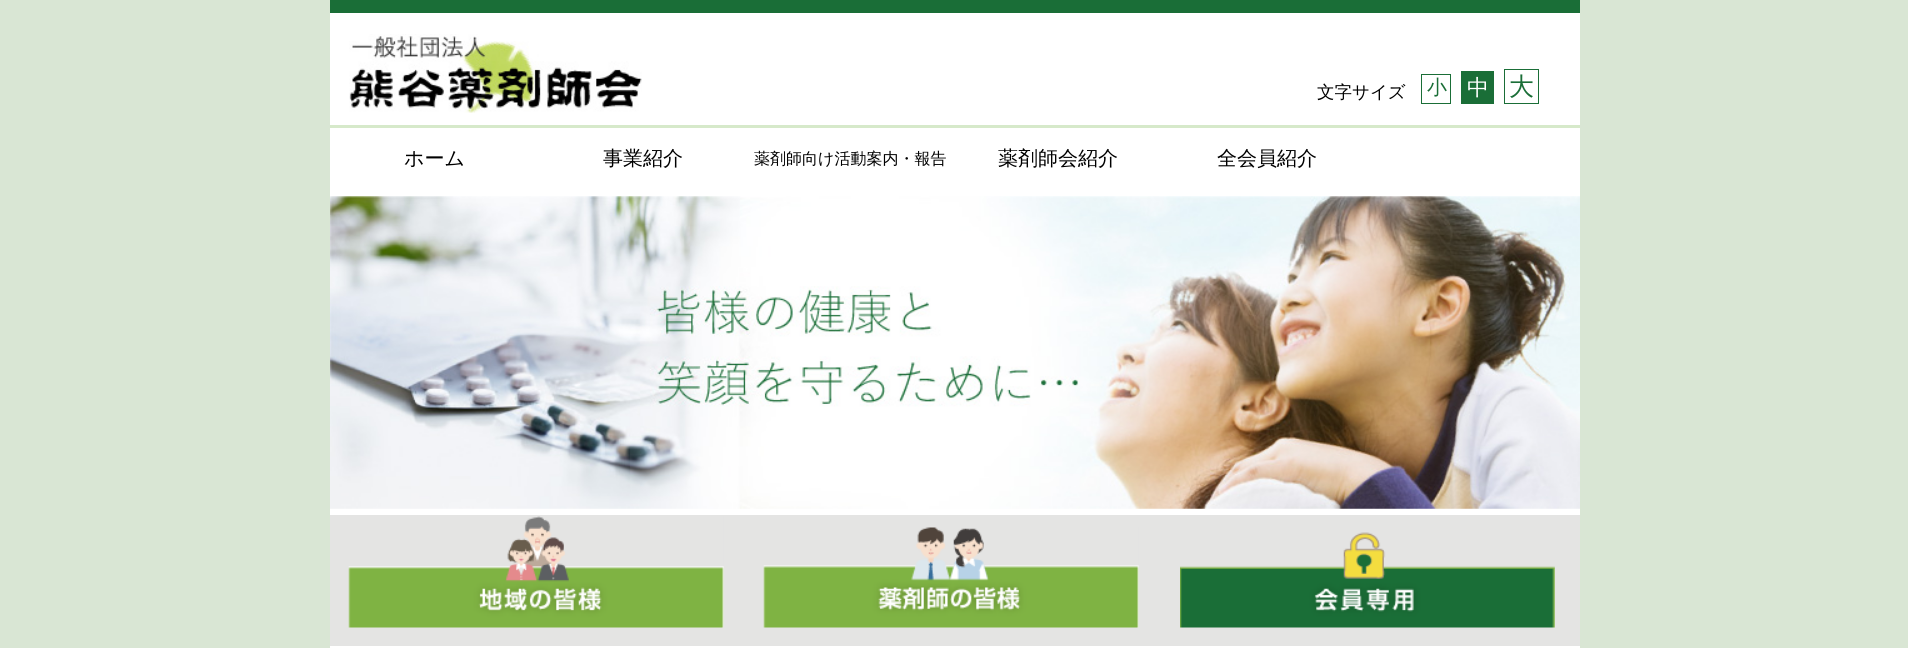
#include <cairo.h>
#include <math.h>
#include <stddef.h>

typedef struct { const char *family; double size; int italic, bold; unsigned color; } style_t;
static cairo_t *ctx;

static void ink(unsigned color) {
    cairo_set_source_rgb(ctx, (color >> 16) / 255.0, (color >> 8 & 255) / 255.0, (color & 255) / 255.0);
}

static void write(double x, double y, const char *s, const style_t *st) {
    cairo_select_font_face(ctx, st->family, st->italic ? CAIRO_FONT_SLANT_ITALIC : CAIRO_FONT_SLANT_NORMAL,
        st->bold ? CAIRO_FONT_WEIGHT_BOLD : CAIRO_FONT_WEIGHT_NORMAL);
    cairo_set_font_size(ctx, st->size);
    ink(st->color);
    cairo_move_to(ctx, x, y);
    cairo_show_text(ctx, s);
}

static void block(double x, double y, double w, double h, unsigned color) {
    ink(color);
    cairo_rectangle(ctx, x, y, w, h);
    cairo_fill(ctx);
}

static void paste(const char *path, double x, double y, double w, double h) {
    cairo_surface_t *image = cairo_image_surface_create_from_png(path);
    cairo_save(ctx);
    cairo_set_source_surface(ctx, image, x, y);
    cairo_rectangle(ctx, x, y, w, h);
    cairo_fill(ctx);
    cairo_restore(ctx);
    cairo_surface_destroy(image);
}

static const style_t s1 = {"WenQuanYi Zen Hei Medium", 17.5, 0, 0, 0x000000};
static const style_t s2 = {"WenQuanYi Zen Hei Medium", 20, 0, 0, 0x1a6e37};
static const style_t s3 = {"WenQuanYi Zen Hei Medium", 22, 0, 0, 0xffffff};
static const style_t s4 = {"WenQuanYi Zen Hei Medium", 25, 0, 0, 0x1a6e37};
static const style_t s5 = {"WenQuanYi Zen Hei Medium", 20, 0, 0, 0x000000};
static const style_t s6 = {"WenQuanYi Zen Hei Medium", 16, 0, 0, 0x000000};

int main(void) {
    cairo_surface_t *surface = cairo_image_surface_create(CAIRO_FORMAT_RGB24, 1908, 648);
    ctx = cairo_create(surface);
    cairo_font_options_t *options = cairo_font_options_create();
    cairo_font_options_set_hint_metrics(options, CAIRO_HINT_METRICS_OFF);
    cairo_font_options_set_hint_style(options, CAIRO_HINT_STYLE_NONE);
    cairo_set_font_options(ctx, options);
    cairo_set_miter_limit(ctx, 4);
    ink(0xd9e6d4);
    cairo_paint(ctx);
    block(330, 13, 1250, 635, 0xffffff);
    block(330, 0, 1250, 13, 0x1a6e37);
    paste("pic1.png", 349, 34, 293, 79);
    write(1317, 98, "文字サイズ", &s1);
    cairo_rectangle(ctx, 1421.5, 74.5, 29, 29);
    ink(0x1a6e37);
    cairo_set_line_width(ctx, 1);
    cairo_stroke(ctx);
    write(1427, 94, "小", &s2);
    block(1461, 71, 33, 33, 0x1a6e37);
    write(1467, 95, "中", &s3);
    cairo_rectangle(ctx, 1504.5, 69.5, 34, 34);
    ink(0x1a6e37);
    cairo_stroke(ctx);
    write(1509, 95, "大", &s4);
    block(330, 125, 1250, 3, 0xd6e9ca);
    write(404, 165, "ホーム", &s5);
    write(603, 165, "事業紹介", &s5);
    write(754, 164, "薬剤師向け活動案内・報告", &s6);
    write(998, 165, "薬剤師会紹介", &s5);
    write(1217, 165, "全会員紹介", &s5);
    paste("pic2.png", 330, 196, 1250, 313);
    block(330, 515, 1250, 131, 0xe4e4e3);
    paste("pic3.png", 348, 516, 376, 112);
    paste("pic4.png", 763, 527, 376, 101);
    paste("pic5.png", 1180, 532, 375, 96);
    cairo_surface_write_to_png(surface, "screenshot.png");
    cairo_font_options_destroy(options);
    cairo_destroy(ctx);
    cairo_surface_destroy(surface);
    return 0;
}
